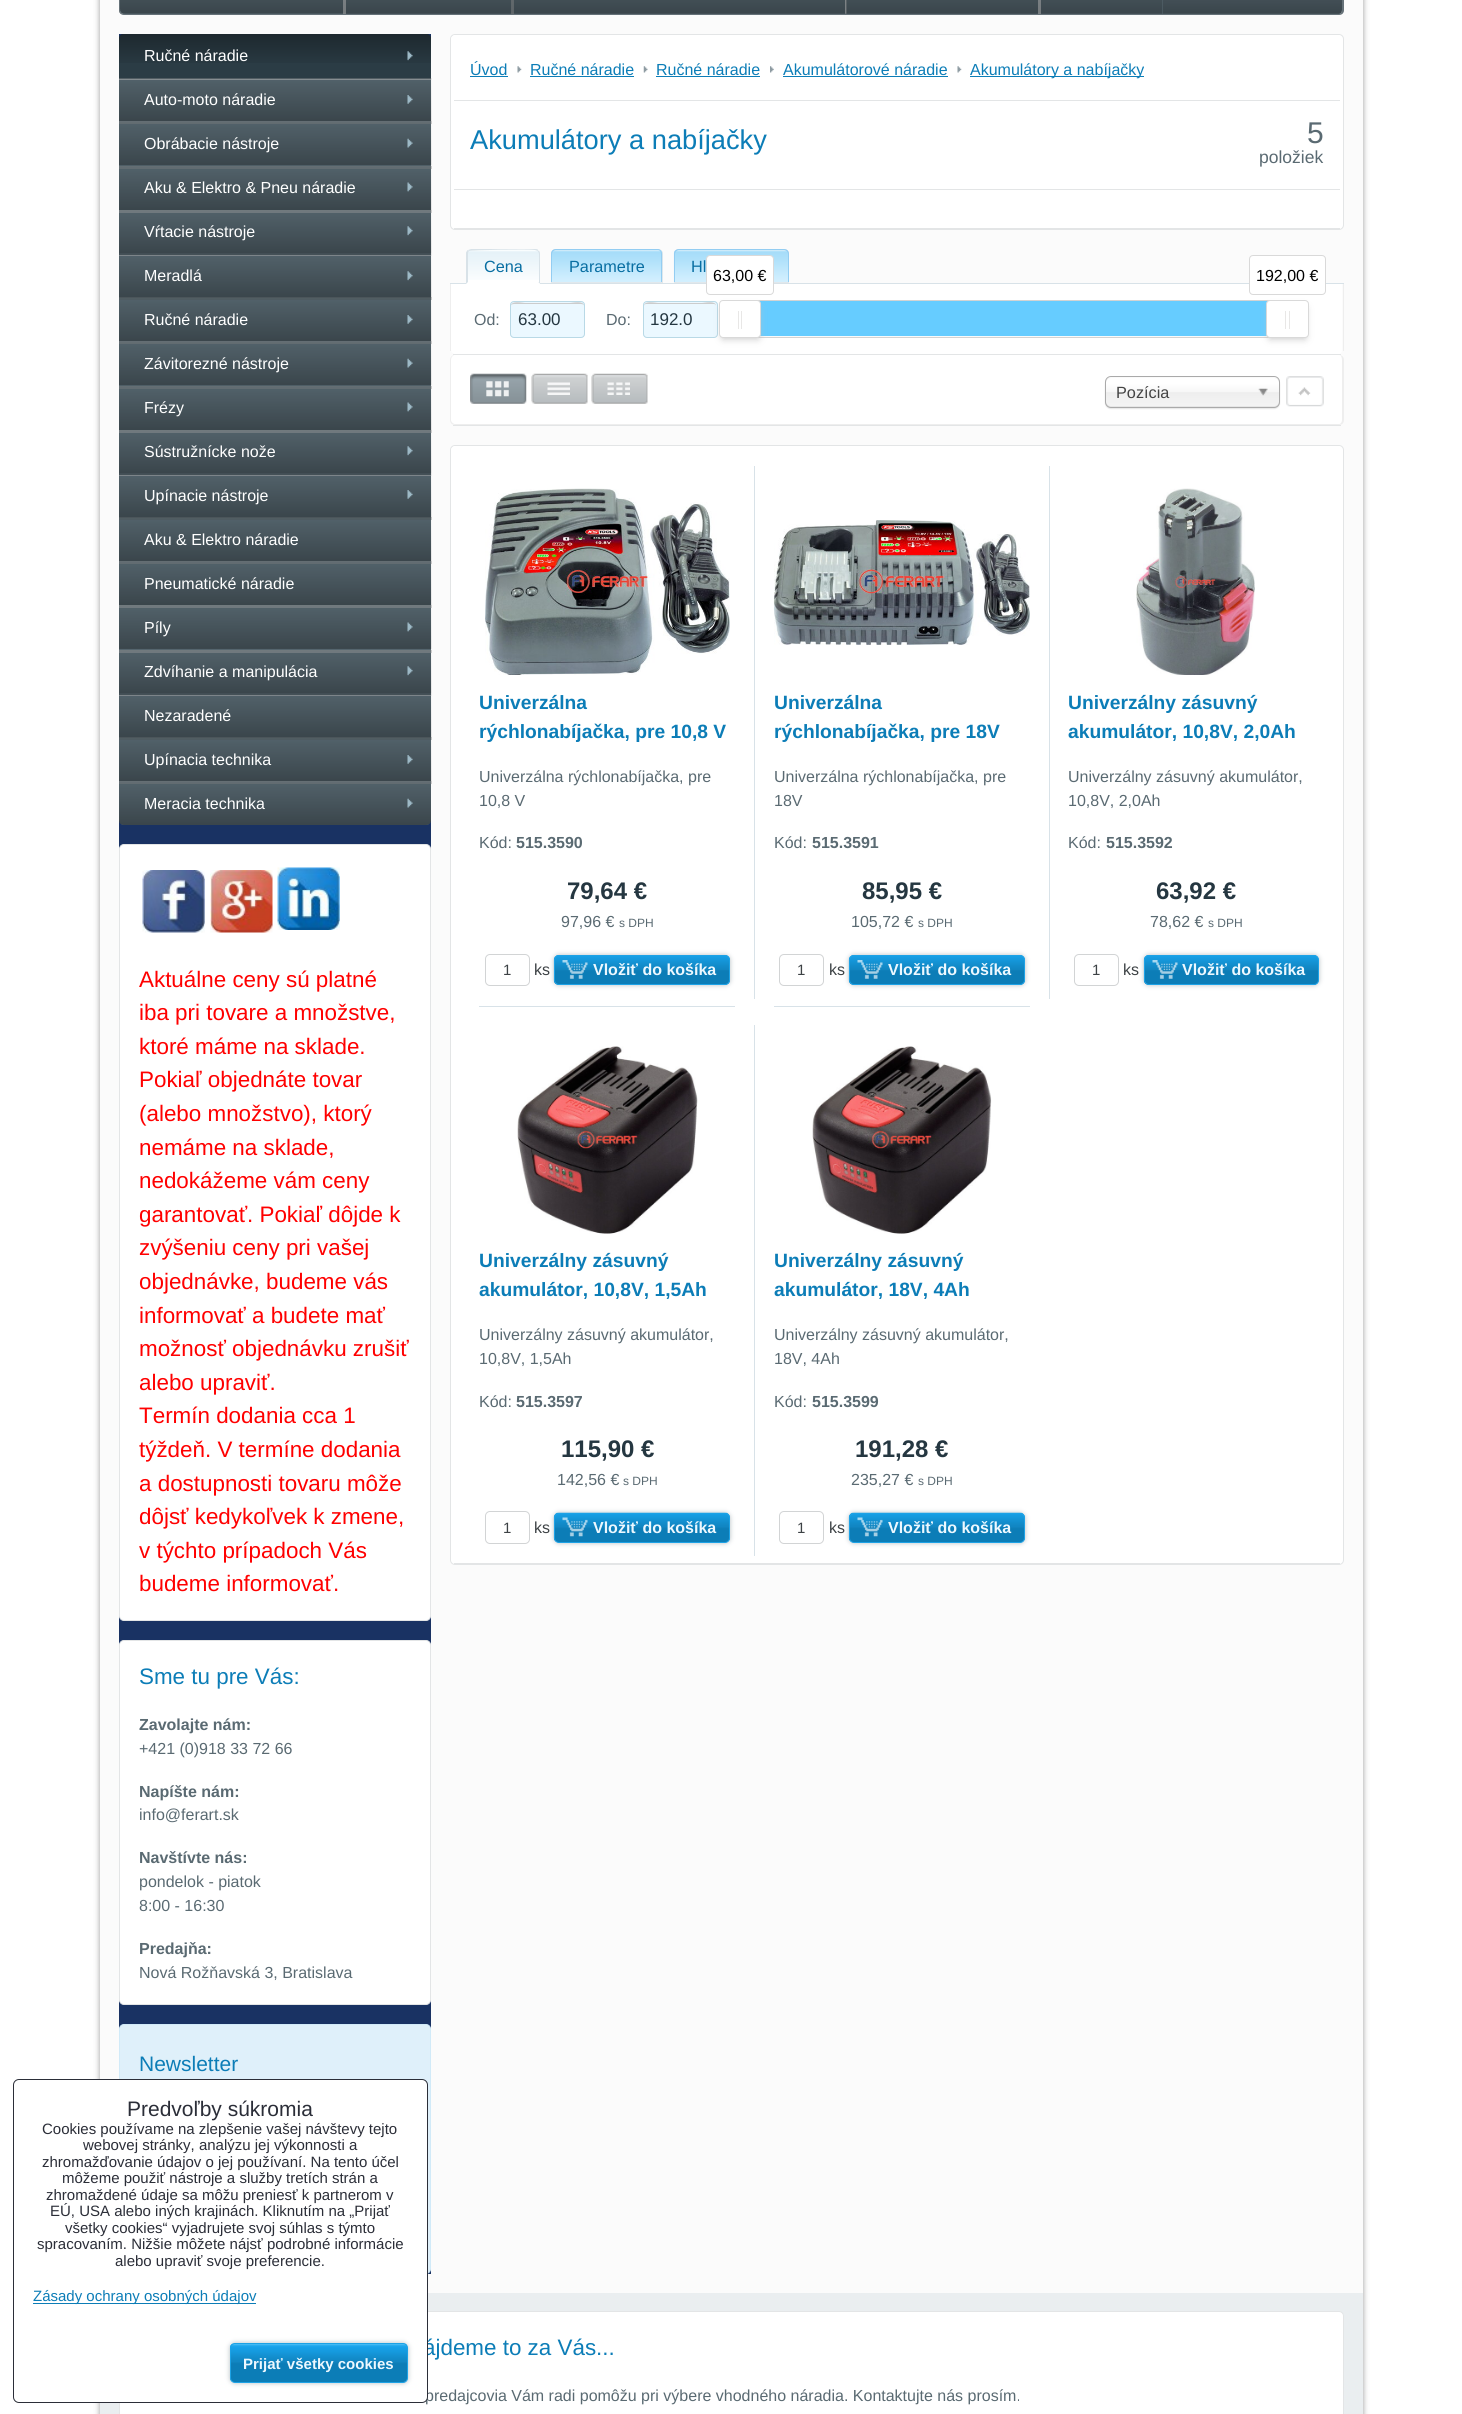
#include <cairo.h>
#include <math.h>
#include <stddef.h>

typedef struct { const char *family; double size; int italic, bold; unsigned color; } style_t;
static cairo_t *ctx;

static void ink(unsigned color) {
    cairo_set_source_rgb(ctx, (color >> 16) / 255.0, (color >> 8 & 255) / 255.0, (color & 255) / 255.0);
}

static void write(double x, double y, const char *s, const style_t *st) {
    cairo_select_font_face(ctx, st->family, st->italic ? CAIRO_FONT_SLANT_ITALIC : CAIRO_FONT_SLANT_NORMAL,
        st->bold ? CAIRO_FONT_WEIGHT_BOLD : CAIRO_FONT_WEIGHT_NORMAL);
    cairo_set_font_size(ctx, st->size);
    ink(st->color);
    cairo_move_to(ctx, x, y);
    cairo_show_text(ctx, s);
}

static void block(double x, double y, double w, double h, unsigned color) {
    ink(color);
    cairo_rectangle(ctx, x, y, w, h);
    cairo_fill(ctx);
}

static void round_path(double x, double y, double w, double h, double r) {
    cairo_new_sub_path(ctx);
    cairo_arc(ctx, x + w - r, y + h - r, r, 0, M_PI / 2);
    cairo_arc(ctx, x + r, y + h - r, r, M_PI / 2, M_PI);
    cairo_arc(ctx, x + r, y + r, r, M_PI, 1.5 * M_PI);
    cairo_arc(ctx, x + w - r, y + r, r, 1.5 * M_PI, 2 * M_PI);
    cairo_close_path(ctx);
}

static void blur_box(double x, double y, double w, double h, double r, double blur, double alpha) {
    cairo_push_group_with_content(ctx, CAIRO_CONTENT_ALPHA);
    cairo_set_operator(ctx, CAIRO_OPERATOR_SOURCE);
    for (int i = 15; i >= -15 && fmin(w, h) + blur * i / 3 > 0; i -= 2) {
        double e = blur * i / 6;
        cairo_set_source_rgba(ctx, 0, 0, 0, alpha * erfc((i - 1) / 8.5) / 2);
        round_path(x - e, y - e, w + 2 * e, h + 2 * e, fmax(0, fmin(r + e + blur * .6, fmin(w, h) / 2 + e)));
        cairo_fill(ctx);
    }
    cairo_pattern_t *soft = cairo_pop_group(ctx);
    cairo_mask(ctx, soft);
    cairo_pattern_destroy(soft);
}

static void paste(const char *path, double x, double y, double w, double h) {
    cairo_surface_t *image = cairo_image_surface_create_from_png(path);
    cairo_save(ctx);
    cairo_set_source_surface(ctx, image, x, y);
    cairo_rectangle(ctx, x, y, w, h);
    cairo_fill(ctx);
    cairo_restore(ctx);
    cairo_surface_destroy(image);
}

static const style_t s1 = {"Liberation Sans", 16, 0, 0, 0xffffff};
static const style_t s2 = {"Liberation Sans", 22.4, 0, 0, 0xff0000};
static const style_t s3 = {"Liberation Sans", 22.4, 0, 0, 0x0c7db7};
static const style_t s4 = {"Liberation Sans", 16, 0, 1, 0x5a6a72};
static const style_t s5 = {"Liberation Sans", 16, 0, 0, 0x5a6a72};
static const style_t s6 = {"Liberation Sans", 21, 0, 0, 0x0c7db7};
static const style_t s7 = {"Liberation Sans", 16, 0, 0, 0x0c7db7};
static const style_t s8 = {"Liberation Sans", 27.25, 0, 0, 0x0c7db7};
static const style_t s9 = {"Liberation Sans", 30, 0, 0, 0x5a6a72};
static const style_t s10 = {"Liberation Sans", 17.5, 0, 0, 0x5a6a72};
static const style_t s11 = {"Liberation Sans", 16.25, 0, 0, 0x086ea2};
static const style_t s12 = {"Liberation Sans", 16, 0, 0, 0x000000};
static const style_t s13 = {"Liberation Sans", 17, 0, 0, 0x253741};
static const style_t s14 = {"Liberation Sans", 16.25, 0, 0, 0x444444};
static const style_t s15 = {"Liberation Sans", 19.25, 0, 1, 0x0c7db7};
static const style_t s16 = {"Liberation Sans", 24, 0, 1, 0x253741};
static const style_t s17 = {"Liberation Sans", 12, 0, 0, 0x5a6a72};
static const style_t s18 = {"Liberation Sans", 15, 0, 0, 0x3d4245};
static const style_t s19 = {"Liberation Sans", 16, 0, 0, 0x3d4245};
static const style_t s20 = {"Liberation Sans", 16, 0, 1, 0xecf8ff};
static const style_t s21 = {"Liberation Sans", 21, 0, 0, 0x2b2e38};
static const style_t s22 = {"Liberation Sans", 15, 0, 0, 0x2b2e38};
static const style_t s23 = {"Liberation Sans", 15, 0, 0, 0x0c7db7};
static const style_t s24 = {"Liberation Sans", 15, 0, 1, 0xecf8ff};

int main(void) {
    cairo_surface_t *surface = cairo_image_surface_create(CAIRO_FORMAT_RGB24, 1462, 2414);
    ctx = cairo_create(surface);
    cairo_font_options_t *options = cairo_font_options_create();
    cairo_font_options_set_hint_metrics(options, CAIRO_HINT_METRICS_OFF);
    cairo_font_options_set_hint_style(options, CAIRO_HINT_STYLE_NONE);
    cairo_set_font_options(ctx, options);
    cairo_set_miter_limit(ctx, 4);
    cairo_pattern_t *gradient;
    ink(0xffffff);
    cairo_paint(ctx);
    ink(0x999999);
    blur_box(100, -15, 1263, 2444, 6, 3, 1);
    block(100, 0, 1263, 2293, 0xfbfbfb);
    ink(0x586972);
    cairo_new_path(ctx);
    cairo_move_to(ctx, 124, -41);
    cairo_line_to(ctx, 1339, -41);
    cairo_curve_to(ctx, 1341, -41, 1342, -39, 1342, -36);
    cairo_line_to(ctx, 1342, 10);
    cairo_curve_to(ctx, 1342, 12, 1341, 14, 1339, 14);
    cairo_line_to(ctx, 124, 14);
    cairo_curve_to(ctx, 122, 14, 120, 12, 120, 10);
    cairo_line_to(ctx, 120, -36);
    cairo_curve_to(ctx, 120, -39, 122, -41, 124, -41);
    cairo_close_path(ctx);
    cairo_fill(ctx);
    paste("pic1.png", 119, 0, 1225, 14);
    ink(0x657178);
    cairo_set_fill_rule(ctx, CAIRO_FILL_RULE_EVEN_ODD);
    cairo_new_path(ctx);
    cairo_move_to(ctx, 124, -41);
    cairo_line_to(ctx, 1339, -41);
    cairo_curve_to(ctx, 1342, -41, 1344, -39, 1344, -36);
    cairo_line_to(ctx, 1344, 10);
    cairo_curve_to(ctx, 1344, 13, 1342, 15, 1339, 15);
    cairo_line_to(ctx, 124, 15);
    cairo_curve_to(ctx, 121, 15, 119, 13, 119, 10);
    cairo_line_to(ctx, 119, -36);
    cairo_curve_to(ctx, 119, -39, 121, -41, 124, -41);
    cairo_close_path(ctx);
    cairo_move_to(ctx, 124, -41);
    cairo_line_to(ctx, 1339, -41);
    cairo_curve_to(ctx, 1341, -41, 1342, -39, 1342, -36);
    cairo_line_to(ctx, 1342, 10);
    cairo_curve_to(ctx, 1342, 12, 1341, 14, 1339, 14);
    cairo_line_to(ctx, 124, 14);
    cairo_curve_to(ctx, 122, 14, 120, 12, 120, 10);
    cairo_line_to(ctx, 120, -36);
    cairo_curve_to(ctx, 120, -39, 122, -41, 124, -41);
    cairo_close_path(ctx);
    cairo_fill(ctx);
    ink(0x586972);
    cairo_new_path(ctx);
    cairo_move_to(ctx, 125, -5);
    cairo_line_to(ctx, 345, -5);
    cairo_line_to(ctx, 345, 14);
    cairo_line_to(ctx, 125, 14);
    cairo_curve_to(ctx, 122, 14, 120, 12, 120, 9);
    cairo_line_to(ctx, 120, 0);
    cairo_curve_to(ctx, 120, -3, 122, -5, 125, -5);
    cairo_close_path(ctx);
    cairo_fill(ctx);
    paste("pic2.png", 120, 0, 225, 14);
    block(345, 0, 818, 14, 0x586972);
    paste("pic3.png", 345, 0, 168, 14);
    cairo_set_source_rgba(ctx, 0.659, 0.659, 0.659, 0.54);
    cairo_rectangle(ctx, 343, 0, 3, 14);
    cairo_fill(ctx);
    paste("pic4.png", 512, 0, 334, 14);
    cairo_set_source_rgba(ctx, 0.545, 0.545, 0.545, 0.43);
    cairo_rectangle(ctx, 511, 0, 3, 14);
    cairo_fill(ctx);
    paste("pic5.png", 846, 0, 194, 14);
    paste("pic6.png", 845, 0, 2, 14);
    paste("pic7.png", 1040, 0, 123, 14);
    cairo_set_source_rgba(ctx, 0.659, 0.659, 0.659, 0.54);
    cairo_rectangle(ctx, 1038, 0, 3, 14);
    cairo_fill(ctx);
    block(119, 34, 312, 2240, 0x193263);
    ink(0x2b3c45);
    cairo_new_path(ctx);
    cairo_move_to(ctx, 124, 34);
    cairo_line_to(ctx, 426, 34);
    cairo_curve_to(ctx, 429, 34, 431, 36, 431, 39);
    cairo_line_to(ctx, 431, 78);
    cairo_line_to(ctx, 119, 78);
    cairo_line_to(ctx, 119, 39);
    cairo_curve_to(ctx, 119, 36, 121, 34, 124, 34);
    cairo_close_path(ctx);
    cairo_fill(ctx);
    paste("pic8.png", 119, 34, 312, 29);
    write(144, 61, "Ručné náradie", &s1);
    paste("pic9.png", 407, 51, 6, 10);
    block(119, 78, 312, 703, 0x586972);
    paste("pic10.png", 119, 78, 313, 43);
    paste("pic11.png", 119, 78, 313, 2);
    write(144, 105, "Auto-moto náradie", &s1);
    paste("pic12.png", 407, 95, 6, 9);
    paste("pic13.png", 119, 121, 313, 45);
    cairo_set_source_rgba(ctx, 0.506, 0.506, 0.506, 0.37);
    cairo_rectangle(ctx, 119, 121, 313, 3);
    cairo_fill(ctx);
    write(144, 149, "Obrábacie nástroje", &s1);
    paste("pic14.png", 407, 138, 6, 10);
    paste("pic15.png", 119, 166, 313, 44);
    cairo_set_source_rgba(ctx, 0.506, 0.506, 0.506, 0.37);
    cairo_rectangle(ctx, 119, 166, 313, 3);
    cairo_fill(ctx);
    write(144, 193, "Aku & Elektro & Pneu náradie", &s1);
    paste("pic16.png", 407, 182, 6, 10);
    paste("pic17.png", 119, 210, 313, 44);
    cairo_set_source_rgba(ctx, 0.6, 0.6, 0.6, 0.43);
    cairo_rectangle(ctx, 119, 210, 313, 3);
    cairo_fill(ctx);
    write(144, 237, "Vŕtacie nástroje", &s1);
    paste("pic18.png", 407, 226, 6, 10);
    paste("pic19.png", 119, 254, 313, 44);
    paste("pic20.png", 119, 254, 313, 2);
    write(144, 281, "Meradlá", &s1);
    paste("pic21.png", 407, 271, 6, 10);
    paste("pic10.png", 119, 298, 313, 43);
    cairo_set_source_rgba(ctx, 0.322, 0.322, 0.322, 0.29);
    cairo_rectangle(ctx, 119, 297, 313, 3);
    cairo_fill(ctx);
    write(144, 325, "Ručné náradie", &s1);
    paste("pic12.png", 407, 315, 6, 9);
    paste("pic13.png", 119, 341, 313, 45);
    cairo_set_source_rgba(ctx, 0.506, 0.506, 0.506, 0.37);
    cairo_rectangle(ctx, 119, 341, 313, 3);
    cairo_fill(ctx);
    write(144, 369, "Závitorezné nástroje", &s1);
    paste("pic14.png", 407, 358, 6, 10);
    paste("pic15.png", 119, 386, 313, 44);
    cairo_set_source_rgba(ctx, 0.506, 0.506, 0.506, 0.37);
    cairo_rectangle(ctx, 119, 386, 313, 3);
    cairo_fill(ctx);
    write(144, 413, "Frézy", &s1);
    paste("pic16.png", 407, 402, 6, 10);
    paste("pic17.png", 119, 430, 313, 44);
    cairo_set_source_rgba(ctx, 0.6, 0.6, 0.6, 0.43);
    cairo_rectangle(ctx, 119, 430, 313, 3);
    cairo_fill(ctx);
    write(144, 457, "Sústružnícke nože", &s1);
    paste("pic18.png", 407, 446, 6, 10);
    paste("pic19.png", 119, 474, 313, 44);
    paste("pic20.png", 119, 474, 313, 2);
    write(144, 501, "Upínacie nástroje", &s1);
    paste("pic22.png", 407, 490, 6, 9);
    paste("pic10.png", 119, 518, 313, 43);
    cairo_set_source_rgba(ctx, 0.322, 0.322, 0.322, 0.29);
    cairo_rectangle(ctx, 119, 517, 313, 3);
    cairo_fill(ctx);
    write(144, 545, "Aku & Elektro náradie", &s1);
    paste("pic23.png", 119, 561, 313, 44);
    cairo_set_source_rgba(ctx, 0.506, 0.506, 0.506, 0.37);
    cairo_rectangle(ctx, 119, 561, 313, 3);
    cairo_fill(ctx);
    write(144, 589, "Pneumatické náradie", &s1);
    paste("pic24.png", 119, 605, 313, 45);
    cairo_set_source_rgba(ctx, 0.6, 0.6, 0.6, 0.43);
    cairo_rectangle(ctx, 119, 605, 313, 3);
    cairo_fill(ctx);
    write(144, 633, "Píly", &s1);
    paste("pic25.png", 407, 622, 6, 10);
    paste("pic17.png", 119, 650, 313, 44);
    cairo_set_source_rgba(ctx, 0.6, 0.6, 0.6, 0.43);
    cairo_rectangle(ctx, 119, 650, 313, 3);
    cairo_fill(ctx);
    write(144, 677, "Zdvíhanie a manipulácia", &s1);
    paste("pic18.png", 407, 666, 6, 10);
    paste("pic19.png", 119, 694, 313, 44);
    paste("pic20.png", 119, 694, 313, 2);
    write(144, 721, "Nezaradené", &s1);
    paste("pic10.png", 119, 738, 313, 43);
    cairo_set_source_rgba(ctx, 0.322, 0.322, 0.322, 0.29);
    cairo_rectangle(ctx, 119, 737, 313, 3);
    cairo_fill(ctx);
    write(144, 765, "Upínacia technika", &s1);
    paste("pic12.png", 407, 755, 6, 9);
    ink(0x586972);
    cairo_new_path(ctx);
    cairo_move_to(ctx, 119, 781);
    cairo_line_to(ctx, 431, 781);
    cairo_line_to(ctx, 431, 820);
    cairo_curve_to(ctx, 431, 823, 429, 825, 426, 825);
    cairo_line_to(ctx, 124, 825);
    cairo_curve_to(ctx, 121, 825, 119, 823, 119, 820);
    cairo_close_path(ctx);
    cairo_fill(ctx);
    paste("pic26.png", 119, 781, 312, 44);
    cairo_set_source_rgba(ctx, 0.506, 0.506, 0.506, 0.37);
    cairo_rectangle(ctx, 119, 781, 313, 3);
    cairo_fill(ctx);
    write(144, 809, "Meracia technika", &s1);
    paste("pic27.png", 407, 798, 6, 10);
    round_path(119.5, 844.5, 311, 776, 4.5);
    cairo_fill_preserve(ctx);
    ink(0xe3e5e6);
    cairo_set_line_width(ctx, 1);
    cairo_stroke(ctx);
    paste("pic28.png", 142, 870, 63, 63);
    paste("pic29.png", 210, 870, 63, 63);
    paste("pic30.png", 277, 867, 63, 63);
    write(139, 987, "Aktuálne ceny sú platné", &s2);
    write(139, 1020, "iba pri tovare a množstve,", &s2);
    write(139, 1054, "ktoré máme na sklade.", &s2);
    write(139, 1087, "Pokiaľ objednáte tovar", &s2);
    write(139, 1121, "(alebo množstvo), ktorý", &s2);
    write(139, 1155, "nemáme na sklade,", &s2);
    write(139, 1188, "nedokážeme vám ceny", &s2);
    write(139, 1222, "garantovať. Pokiaľ dôjde k", &s2);
    write(139, 1255, "zvýšeniu ceny pri vašej", &s2);
    write(139, 1289, "objednávke, budeme vás", &s2);
    write(139, 1323, "informovať a budete mať", &s2);
    write(139, 1356, "možnosť objednávku zrušiť", &s2);
    write(139, 1390, "alebo upraviť.", &s2);
    write(139, 1423, "Termín dodania cca 1", &s2);
    write(139, 1457, "týždeň. V termíne dodania", &s2);
    write(139, 1491, "a dostupnosti tovaru môže", &s2);
    write(139, 1524, "dôjsť kedykoľvek k zmene,", &s2);
    write(139, 1558, "v týchto prípadoch Vás", &s2);
    write(139, 1591, "budeme informovať.", &s2);
    ink(0xffffff);
    round_path(119.5, 1640.5, 311, 364, 4.5);
    cairo_fill_preserve(ctx);
    ink(0xe3e5e6);
    cairo_stroke(ctx);
    write(139, 1684, "Sme tu pre Vás:", &s3);
    write(139, 1730, "Zavolajte nám:", &s4);
    write(139, 1754, "+421 (0)918 33 72 66", &s5);
    write(139, 1797, "Napíšte nám:", &s4);
    write(139, 1820, "info@ferart.sk", &s5);
    write(139, 1863, "Navštívte nás:", &s4);
    write(139, 1887, "pondelok - piatok", &s5);
    write(139, 1911, "8:00 - 16:30", &s5);
    write(139, 1954, "Predajňa:", &s4);
    write(139, 1978, "Nová Rožňavská 3, Bratislava", &s5);
    ink(0xdff0fa);
    round_path(119.5, 2024.5, 311, 249, 4.5);
    cairo_fill_preserve(ctx);
    ink(0xd1eaf8);
    cairo_stroke(ctx);
    write(139, 2071, "Newsletter", &s6);
    ink(0xffffff);
    round_path(450.5, 34.5, 893, 195, 4.5);
    cairo_fill_preserve(ctx);
    ink(0xe3e5e6);
    cairo_stroke(ctx);
    ink(0xffffff);
    cairo_set_fill_rule(ctx, CAIRO_FILL_RULE_WINDING);
    cairo_new_path(ctx);
    cairo_move_to(ctx, 456, 35);
    cairo_line_to(ctx, 1338, 35);
    cairo_curve_to(ctx, 1340, 35, 1342, 37, 1342, 40);
    cairo_line_to(ctx, 1342, 96);
    cairo_curve_to(ctx, 1342, 98, 1340, 100, 1338, 100);
    cairo_line_to(ctx, 456, 100);
    cairo_curve_to(ctx, 453, 100, 451, 98, 451, 96);
    cairo_line_to(ctx, 451, 40);
    cairo_curve_to(ctx, 451, 37, 453, 35, 456, 35);
    cairo_close_path(ctx);
    cairo_fill(ctx);
    block(454, 100, 886, 1, 0xe3e5e6);
    write(470, 75, "Úvod", &s7);
    block(470, 76, 38, 1, 0x0c7db7);
    paste("pic31.png", 517, 66, 5, 7);
    write(530, 75, "Ručné náradie", &s7);
    block(530, 76, 104, 1, 0x0c7db7);
    paste("pic32.png", 643, 66, 5, 7);
    write(656, 75, "Ručné náradie", &s7);
    block(656, 76, 104, 1, 0x0c7db7);
    paste("pic33.png", 770, 66, 4, 7);
    write(783, 75, "Akumulátorové náradie", &s7);
    block(783, 76, 165, 1, 0x0c7db7);
    paste("pic31.png", 957, 66, 5, 7);
    block(970, 76, 174, 1, 0x0c7db7);
    write(970, 75, "Akumulátory a nabíjačky", &s7);
    block(454, 189, 886, 1, 0xe3e5e6);
    write(470, 149, "Akumulátory a nabíjačky", &s8);
    write(1307, 143, "5", &s9);
    write(1259, 163, "položiek", &s10);
    block(454, 228, 886, 1, 0xe3e5e6);
    block(453, 425, 888, 1, 0xe3e5e6);
    block(453, 354, 888, 1, 0xe3e5e6);
    block(450, 283, 894, 1, 0xd8e2e8);
    ink(0xffffff);
    cairo_new_path(ctx);
    cairo_move_to(ctx, 471, 249);
    cairo_line_to(ctx, 535, 249);
    cairo_curve_to(ctx, 538, 249, 540, 251, 540, 254);
    cairo_line_to(ctx, 540, 284);
    cairo_line_to(ctx, 466, 284);
    cairo_line_to(ctx, 466, 254);
    cairo_curve_to(ctx, 466, 251, 468, 249, 471, 249);
    cairo_close_path(ctx);
    cairo_fill(ctx);
    paste("pic34.png", 466, 250, 74, 30);
    ink(0xd8e2e8);
    cairo_new_path(ctx);
    cairo_move_to(ctx, 471, 249);
    cairo_line_to(ctx, 468, 250);
    cairo_line_to(ctx, 469, 251);
    cairo_curve_to(ctx, 470, 250, 530, 249, 535, 250);
    cairo_line_to(ctx, 538, 251);
    cairo_line_to(ctx, 538, 250);
    cairo_curve_to(ctx, 538, 249, 536, 249, 535, 249);
    cairo_close_path(ctx);
    cairo_fill(ctx);
    cairo_new_path(ctx);
    cairo_move_to(ctx, 538.5, 250.5);
    cairo_curve_to(ctx, 539.5, 251, 540, 252.5, 540, 254);
    cairo_line_to(ctx, 540, 284);
    cairo_line_to(ctx, 538, 282);
    cairo_line_to(ctx, 539, 282);
    cairo_line_to(ctx, 539, 254);
    cairo_curve_to(ctx, 539, 253, 538.5, 252, 537.5, 251);
    cairo_close_path(ctx);
    cairo_fill(ctx);
    ink(0xffffff);
    cairo_new_path(ctx);
    cairo_move_to(ctx, 540, 284);
    cairo_line_to(ctx, 538, 282);
    cairo_line_to(ctx, 468, 282);
    cairo_line_to(ctx, 466, 284);
    cairo_close_path(ctx);
    cairo_fill(ctx);
    ink(0xd8e2e8);
    cairo_new_path(ctx);
    cairo_move_to(ctx, 466, 284);
    cairo_line_to(ctx, 468, 282);
    cairo_line_to(ctx, 468, 254);
    cairo_curve_to(ctx, 468, 253, 468, 252, 469, 251);
    cairo_line_to(ctx, 467.5, 250);
    cairo_line_to(ctx, 466, 252.5);
    cairo_close_path(ctx);
    cairo_fill(ctx);
    write(484, 272, "Cena", &s11);
    ink(0xe6e6e6);
    cairo_new_path(ctx);
    cairo_move_to(ctx, 556, 249);
    cairo_line_to(ctx, 658, 249);
    cairo_curve_to(ctx, 661, 249, 663, 251, 663, 254);
    cairo_line_to(ctx, 663, 283);
    cairo_line_to(ctx, 551, 283);
    cairo_line_to(ctx, 551, 254);
    cairo_curve_to(ctx, 551, 251, 553, 249, 556, 249);
    cairo_close_path(ctx);
    cairo_fill(ctx);
    paste("pic35.png", 551, 249, 112, 34);
    ink(0x93cdf2);
    cairo_set_fill_rule(ctx, CAIRO_FILL_RULE_EVEN_ODD);
    cairo_new_path(ctx);
    cairo_move_to(ctx, 556, 249);
    cairo_line_to(ctx, 658, 249);
    cairo_curve_to(ctx, 660, 249, 662, 251, 662, 254);
    cairo_line_to(ctx, 662, 282);
    cairo_line_to(ctx, 551, 282);
    cairo_line_to(ctx, 551, 254);
    cairo_curve_to(ctx, 551, 251, 553, 249, 556, 249);
    cairo_close_path(ctx);
    cairo_move_to(ctx, 556, 250);
    cairo_line_to(ctx, 658, 250);
    cairo_curve_to(ctx, 660, 250, 661, 252, 661, 254);
    cairo_line_to(ctx, 661, 282);
    cairo_line_to(ctx, 552, 282);
    cairo_line_to(ctx, 552, 254);
    cairo_curve_to(ctx, 552, 252, 554, 250, 556, 250);
    cairo_close_path(ctx);
    cairo_fill(ctx);
    write(569, 272, "Parametre", &s11);
    ink(0xe6e6e6);
    cairo_new_path(ctx);
    cairo_move_to(ctx, 679, 249);
    cairo_line_to(ctx, 784, 249);
    cairo_curve_to(ctx, 787, 249, 789, 251, 789, 254);
    cairo_line_to(ctx, 789, 283);
    cairo_line_to(ctx, 674, 283);
    cairo_line_to(ctx, 674, 254);
    cairo_curve_to(ctx, 674, 251, 676, 249, 679, 249);
    cairo_close_path(ctx);
    cairo_fill(ctx);
    paste("pic36.png", 673, 249, 116, 34);
    ink(0x93cdf2);
    cairo_new_path(ctx);
    cairo_move_to(ctx, 679, 249);
    cairo_line_to(ctx, 784, 249);
    cairo_curve_to(ctx, 787, 249, 789, 251, 789, 254);
    cairo_line_to(ctx, 789, 282);
    cairo_line_to(ctx, 674, 282);
    cairo_line_to(ctx, 674, 254);
    cairo_curve_to(ctx, 674, 251, 676, 249, 679, 249);
    cairo_close_path(ctx);
    cairo_move_to(ctx, 679, 250);
    cairo_line_to(ctx, 784, 250);
    cairo_curve_to(ctx, 786, 250, 788, 252, 788, 254);
    cairo_line_to(ctx, 788, 282);
    cairo_line_to(ctx, 675, 282);
    cairo_line_to(ctx, 675, 254);
    cairo_curve_to(ctx, 675, 252, 677, 250, 679, 250);
    cairo_close_path(ctx);
    cairo_fill(ctx);
    write(691, 272, "Hľ", &s11);
    ink(0xffffff);
    cairo_set_fill_rule(ctx, CAIRO_FILL_RULE_WINDING);
    cairo_new_path(ctx);
    cairo_move_to(ctx, 451, 284);
    cairo_line_to(ctx, 1342, 284);
    cairo_line_to(ctx, 1342, 349);
    cairo_curve_to(ctx, 1342, 352, 1341, 354, 1339, 354);
    cairo_line_to(ctx, 455, 354);
    cairo_curve_to(ctx, 453, 354, 451, 352, 451, 349);
    cairo_close_path(ctx);
    cairo_fill(ctx);
    block(1343, 284, 1, 67, 0xeeeeee);
    block(450, 284, 1, 67, 0xeeeeee);
    block(759, 336, 509, 1, 0xfafafa);
    cairo_rectangle(ctx, 739.5, 300.5, 549, 37);
    ink(0xd3d3d3);
    cairo_stroke(ctx);
    block(759, 301, 509, 35, 0x66ccff);
    ink(0xebf8ff);
    round_path(643, 301, 75, 37, 4);
    cairo_fill(ctx);
    ink(0xcccccc);
    cairo_new_path(ctx);
    cairo_move_to(ctx, 646, 304);
    cairo_line_to(ctx, 714, 304);
    cairo_curve_to(ctx, 715, 304, 716, 305, 716, 306);
    cairo_curve_to(ctx, 716, 300, 704, 303, 702, 303);
    cairo_line_to(ctx, 658, 303);
    cairo_curve_to(ctx, 656, 303, 644, 300, 644, 306);
    cairo_curve_to(ctx, 644, 305, 645, 304, 646, 304);
    cairo_close_path(ctx);
    cairo_fill(ctx);
    round_path(643.5, 301.5, 74, 36, 3.5);
    ink(0xb9d9e6);
    cairo_stroke(ctx);
    ink(0xbbbbbb);
    blur_box(723, 308, 35, 30, 0, 4, 1);
    ink(0xffffff);
    round_path(719.5, 300.5, 41, 37, 3.5);
    cairo_fill_preserve(ctx);
    ink(0xd9d9d9);
    cairo_stroke(ctx);
    ink(0xffffff);
    round_path(706.5, 255.5, 67, 39, 3.5);
    cairo_fill_preserve(ctx);
    ink(0xd9d9d9);
    cairo_stroke(ctx);
    write(713, 281, "63,00 €", &s12);
    block(738, 311, 1, 18, 0xe8e7e6);
    block(741, 311, 1, 18, 0xe8e7e6);
    ink(0xbbbbbb);
    blur_box(1270, 308, 35, 30, 0, 4, 1);
    ink(0xffffff);
    round_path(1266.5, 300.5, 42, 37, 3.5);
    cairo_fill_preserve(ctx);
    ink(0xd9d9d9);
    cairo_stroke(ctx);
    ink(0xffffff);
    round_path(1249.5, 255.5, 76, 39, 3.5);
    cairo_fill_preserve(ctx);
    ink(0xd9d9d9);
    cairo_stroke(ctx);
    write(1256, 281, "192,00 €", &s12);
    block(1285, 311, 1, 18, 0xe8e7e6);
    block(1289, 311, 1, 18, 0xe8e7e6);
    write(474, 325, "Od:", &s5);
    ink(0xebf8ff);
    round_path(510, 301, 75, 37, 4);
    cairo_fill(ctx);
    ink(0xcccccc);
    cairo_new_path(ctx);
    cairo_move_to(ctx, 514, 304);
    cairo_line_to(ctx, 581, 304);
    cairo_curve_to(ctx, 583, 304, 584, 305, 584, 306);
    cairo_curve_to(ctx, 584, 300, 572, 303, 570, 303);
    cairo_line_to(ctx, 525, 303);
    cairo_curve_to(ctx, 523, 303, 511, 300, 511, 306);
    cairo_curve_to(ctx, 511, 305, 512, 304, 514, 304);
    cairo_close_path(ctx);
    cairo_fill(ctx);
    round_path(510.5, 301.5, 74, 36, 3.5);
    ink(0xb9d9e6);
    cairo_stroke(ctx);
    write(518, 325, "63.00", &s13);
    write(606, 325, "Do:", &s5);
    write(650, 325, "192.0", &s13);
    ink(0xffffff);
    cairo_new_path(ctx);
    cairo_move_to(ctx, 455, 355);
    cairo_line_to(ctx, 1339, 355);
    cairo_curve_to(ctx, 1341, 355, 1342, 357, 1342, 360);
    cairo_line_to(ctx, 1342, 420);
    cairo_curve_to(ctx, 1342, 422, 1341, 424, 1339, 424);
    cairo_line_to(ctx, 455, 424);
    cairo_curve_to(ctx, 453, 424, 451, 422, 451, 420);
    cairo_line_to(ctx, 451, 360);
    cairo_curve_to(ctx, 451, 357, 453, 355, 455, 355);
    cairo_close_path(ctx);
    cairo_fill(ctx);
    ink(0xeeeeee);
    cairo_set_fill_rule(ctx, CAIRO_FILL_RULE_EVEN_ODD);
    cairo_new_path(ctx);
    cairo_move_to(ctx, 455, 355);
    cairo_line_to(ctx, 1339, 355);
    cairo_curve_to(ctx, 1342, 355, 1344, 357, 1344, 360);
    cairo_line_to(ctx, 1344, 420);
    cairo_curve_to(ctx, 1344, 423, 1342, 425, 1339, 425);
    cairo_line_to(ctx, 455, 425);
    cairo_curve_to(ctx, 452, 425, 450, 423, 450, 420);
    cairo_line_to(ctx, 450, 360);
    cairo_curve_to(ctx, 450, 357, 452, 355, 455, 355);
    cairo_close_path(ctx);
    cairo_move_to(ctx, 455, 355);
    cairo_line_to(ctx, 1339, 355);
    cairo_curve_to(ctx, 1341, 355, 1342, 357, 1342, 360);
    cairo_line_to(ctx, 1342, 420);
    cairo_curve_to(ctx, 1342, 422, 1341, 424, 1339, 424);
    cairo_line_to(ctx, 455, 424);
    cairo_curve_to(ctx, 453, 424, 451, 422, 451, 420);
    cairo_line_to(ctx, 451, 360);
    cairo_curve_to(ctx, 451, 357, 453, 355, 455, 355);
    cairo_close_path(ctx);
    cairo_fill(ctx);
    paste("pic37.png", 470, 373, 57, 31);
    paste("pic38.png", 486, 381, 23, 16);
    paste("pic39.png", 531, 373, 57, 31);
    paste("pic40.png", 547, 382, 23, 13);
    paste("pic39.png", 591, 373, 57, 31);
    paste("pic41.png", 607, 382, 23, 13);
    ink(0x000000);
    blur_box(1105, 378, 175, 31, 6, 0.5, 0.1);
    gradient = cairo_pattern_create_linear(1193, 378, 1193, 406);
    cairo_pattern_add_color_stop_rgba(gradient, 0.2, 1, 1, 1, 1);
    cairo_pattern_add_color_stop_rgba(gradient, 0.5, 0.965, 0.965, 0.965, 1);
    cairo_pattern_add_color_stop_rgba(gradient, 0.52, 0.933, 0.933, 0.933, 1);
    cairo_pattern_add_color_stop_rgba(gradient, 1, 0.957, 0.957, 0.957, 1);
    cairo_set_source(ctx, gradient);
    cairo_pattern_destroy(gradient);
    round_path(1106, 378, 173, 28, 5);
    cairo_fill(ctx);
    round_path(1105.5, 376.5, 174, 31, 5.5);
    ink(0xaaaaaa);
    cairo_stroke(ctx);
    write(1116, 398, "Pozícia", &s14);
    paste("pic42.png", 1258, 388, 10, 8);
    paste("pic43.png", 1286, 376, 38, 31);
    ink(0xffffff);
    round_path(450.5, 445.5, 893, 1119, 4.5);
    cairo_fill_preserve(ctx);
    ink(0xe3e5e6);
    cairo_stroke(ctx);
    ink(0xffffff);
    cairo_set_fill_rule(ctx, CAIRO_FILL_RULE_WINDING);
    cairo_new_path(ctx);
    cairo_move_to(ctx, 456, 446);
    cairo_line_to(ctx, 1338, 446);
    cairo_curve_to(ctx, 1340, 446, 1342, 448, 1342, 451);
    cairo_line_to(ctx, 1342, 1559);
    cairo_curve_to(ctx, 1342, 1561, 1340, 1562, 1338, 1562);
    cairo_line_to(ctx, 456, 1562);
    cairo_curve_to(ctx, 453, 1562, 451, 1561, 451, 1559);
    cairo_line_to(ctx, 451, 451);
    cairo_curve_to(ctx, 451, 448, 453, 446, 456, 446);
    cairo_close_path(ctx);
    cairo_fill(ctx);
    block(454, 1563, 886, 1, 0xe3e5e6);
    paste("pic44.png", 485, 488, 245, 187);
    write(479, 709, "Univerzálna", &s15);
    write(479, 738, "rýchlonabíjačka, pre 10,8 V", &s15);
    write(479, 782, "Univerzálna rýchlonabíjačka, pre", &s5);
    write(479, 806, "10,8 V", &s5);
    write(479, 848, "Kód:", &s5);
    write(516, 848, "515.3590", &s4);
    write(567, 899, "79,64 €", &s16);
    write(561, 927, "97,96 €", &s5);
    write(619, 927, "s DPH", &s17);
    round_path(485.5, 954.5, 44, 31, 4.5);
    ink(0xd2d4d5);
    cairo_stroke(ctx);
    write(503, 975, "1", &s18);
    write(534, 975, "ks", &s19);
    ink(0xb6bfc3);
    blur_box(554, 955, 176, 30, 5, 2.5, 1);
    paste("pic45.png", 553, 955, 177, 30);
    round_path(554.5, 955.5, 175, 29, 4.5);
    ink(0x1da2e6);
    cairo_stroke(ctx);
    paste("pic46.png", 562, 960, 26, 19);
    write(593, 975, "Vložiť do košíka", &s20);
    block(754, 466, 1, 533, 0xd8e2e8);
    paste("pic47.png", 773, 520, 257, 125);
    write(774, 709, "Univerzálna", &s15);
    write(774, 738, "rýchlonabíjačka, pre 18V", &s15);
    write(774, 782, "Univerzálna rýchlonabíjačka, pre", &s5);
    write(774, 806, "18V", &s5);
    write(774, 848, "Kód:", &s5);
    write(812, 848, "515.3591", &s4);
    write(862, 899, "85,95 €", &s16);
    write(851, 927, "105,72 €", &s5);
    write(918, 927, "s DPH", &s17);
    round_path(779.5, 954.5, 44, 31, 4.5);
    ink(0xd2d4d5);
    cairo_stroke(ctx);
    write(797, 975, "1", &s18);
    write(829, 975, "ks", &s19);
    ink(0xb6bfc3);
    blur_box(849, 955, 176, 30, 5, 2.5, 1);
    paste("pic48.png", 848, 955, 177, 30);
    round_path(849.5, 955.5, 175, 29, 4.5);
    ink(0x1da2e6);
    cairo_stroke(ctx);
    paste("pic49.png", 857, 960, 26, 19);
    write(888, 975, "Vložiť do košíka", &s20);
    block(1049, 466, 1, 533, 0xd8e2e8);
    paste("pic50.png", 1136, 488, 119, 187);
    write(1068, 709, "Univerzálny zásuvný", &s15);
    write(1068, 738, "akumulátor, 10,8V, 2,0Ah", &s15);
    write(1068, 782, "Univerzálny zásuvný akumulátor,", &s5);
    write(1068, 806, "10,8V, 2,0Ah", &s5);
    write(1068, 848, "Kód:", &s5);
    write(1106, 848, "515.3592", &s4);
    write(1156, 899, "63,92 €", &s16);
    write(1150, 927, "78,62 €", &s5);
    write(1208, 927, "s DPH", &s17);
    round_path(1074.5, 954.5, 44, 31, 4.5);
    ink(0xd2d4d5);
    cairo_stroke(ctx);
    write(1092, 975, "1", &s18);
    write(1123, 975, "ks", &s19);
    ink(0xb6bfc3);
    blur_box(1144, 955, 175, 30, 5, 2.5, 1);
    paste("pic51.png", 1143, 955, 176, 30);
    round_path(1144.5, 955.5, 174, 29, 4.5);
    ink(0x1da2e6);
    cairo_stroke(ctx);
    paste("pic46.png", 1152, 960, 26, 19);
    write(1182, 975, "Vložiť do košíka", &s20);
    block(479, 1006, 256, 1, 0xd8e2e8);
    paste("pic52.png", 517, 1046, 181, 188);
    write(479, 1267, "Univerzálny zásuvný", &s15);
    write(479, 1296, "akumulátor, 10,8V, 1,5Ah", &s15);
    write(479, 1340, "Univerzálny zásuvný akumulátor,", &s5);
    write(479, 1364, "10,8V, 1,5Ah", &s5);
    write(479, 1407, "Kód:", &s5);
    write(516, 1407, "515.3597", &s4);
    write(561, 1457, "115,90 €", &s16);
    write(557, 1485, "142,56 €", &s5);
    write(623, 1485, "s DPH", &s17);
    round_path(485.5, 1511.5, 44, 32, 4.5);
    ink(0xd2d4d5);
    cairo_stroke(ctx);
    write(503, 1533, "1", &s18);
    write(534, 1533, "ks", &s19);
    ink(0xb6bfc3);
    blur_box(554, 1513, 176, 30, 5, 2.5, 1);
    paste("pic53.png", 553, 1512, 177, 31);
    round_path(554.5, 1513.5, 175, 29, 4.5);
    ink(0x1da2e6);
    cairo_stroke(ctx);
    paste("pic54.png", 562, 1517, 26, 20);
    write(593, 1533, "Vložiť do košíka", &s20);
    block(754, 1025, 1, 531, 0xd8e2e8);
    block(774, 1006, 256, 1, 0xd8e2e8);
    paste("pic55.png", 812, 1046, 180, 188);
    write(774, 1267, "Univerzálny zásuvný", &s15);
    write(774, 1296, "akumulátor, 18V, 4Ah", &s15);
    write(774, 1340, "Univerzálny zásuvný akumulátor,", &s5);
    write(774, 1364, "18V, 4Ah", &s5);
    write(774, 1407, "Kód:", &s5);
    write(812, 1407, "515.3599", &s4);
    write(855, 1457, "191,28 €", &s16);
    write(851, 1485, "235,27 €", &s5);
    write(918, 1485, "s DPH", &s17);
    round_path(779.5, 1511.5, 44, 32, 4.5);
    ink(0xd2d4d5);
    cairo_stroke(ctx);
    write(797, 1533, "1", &s18);
    write(829, 1533, "ks", &s19);
    ink(0xb6bfc3);
    blur_box(849, 1513, 176, 30, 5, 2.5, 1);
    paste("pic53.png", 848, 1512, 177, 31);
    round_path(849.5, 1513.5, 175, 29, 4.5);
    ink(0x1da2e6);
    cairo_stroke(ctx);
    paste("pic56.png", 857, 1517, 26, 20);
    write(888, 1533, "Vložiť do košíka", &s20);
    block(100, 2293, 1263, 121, 0xeaeef0);
    ink(0xffffff);
    round_path(119.5, 2311.5, 1224, 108, 4.5);
    cairo_fill_preserve(ctx);
    ink(0xe3e5e6);
    cairo_stroke(ctx);
    write(423, 2355, "ájdeme to za Vás...", &s3);
    write(425, 2401, "predajcovia Vám radi pomôžu pri výbere vhodného náradia. Kontaktujte nás prosím.", &s5);
    ink(0xffffff);
    round_path(13.5, 2079.5, 414, 323, 5.5);
    cairo_fill_preserve(ctx);
    ink(0x2b2e38);
    cairo_stroke(ctx);
    write(127, 2116, "Predvoľby súkromia", &s21);
    write(42, 2134, "Cookies používame na zlepšenie vašej návštevy tejto", &s22);
    write(83, 2150, "webovej stránky, analýzu jej výkonnosti a", &s22);
    write(42, 2167, "zhromažďovanie údajov o jej používaní. Na tento účel", &s22);
    write(62, 2183, "môžeme použiť nástroje a služby tretích strán a", &s22);
    write(46, 2200, "zhromaždené údaje sa môžu preniesť k partnerom v", &s22);
    write(50, 2216, "EÚ, USA alebo iných krajinách. Kliknutím na „Prijať", &s22);
    write(65, 2233, "všetky cookies“ vyjadrujete svoj súhlas s týmto", &s22);
    write(37, 2249, "spracovaním. Nižšie môžete nájsť podrobné informácie", &s22);
    write(115, 2266, "alebo upraviť svoje preferencie.", &s22);
    block(33, 2303, 223, 1, 0x0c7db7);
    write(33, 2301, "Zásady ochrany osobných údajov", &s23);
    ink(0xb6bfc3);
    blur_box(230, 2343, 178, 40, 5, 2.5, 1);
    paste("pic57.png", 230, 2343, 178, 39);
    round_path(230.5, 2343.5, 177, 39, 4.5);
    ink(0x1da2e6);
    cairo_stroke(ctx);
    write(243, 2369, "Prijať všetky cookies", &s24);
    cairo_surface_write_to_png(surface, "screenshot.png");
    cairo_font_options_destroy(options);
    cairo_destroy(ctx);
    cairo_surface_destroy(surface);
    return 0;
}
